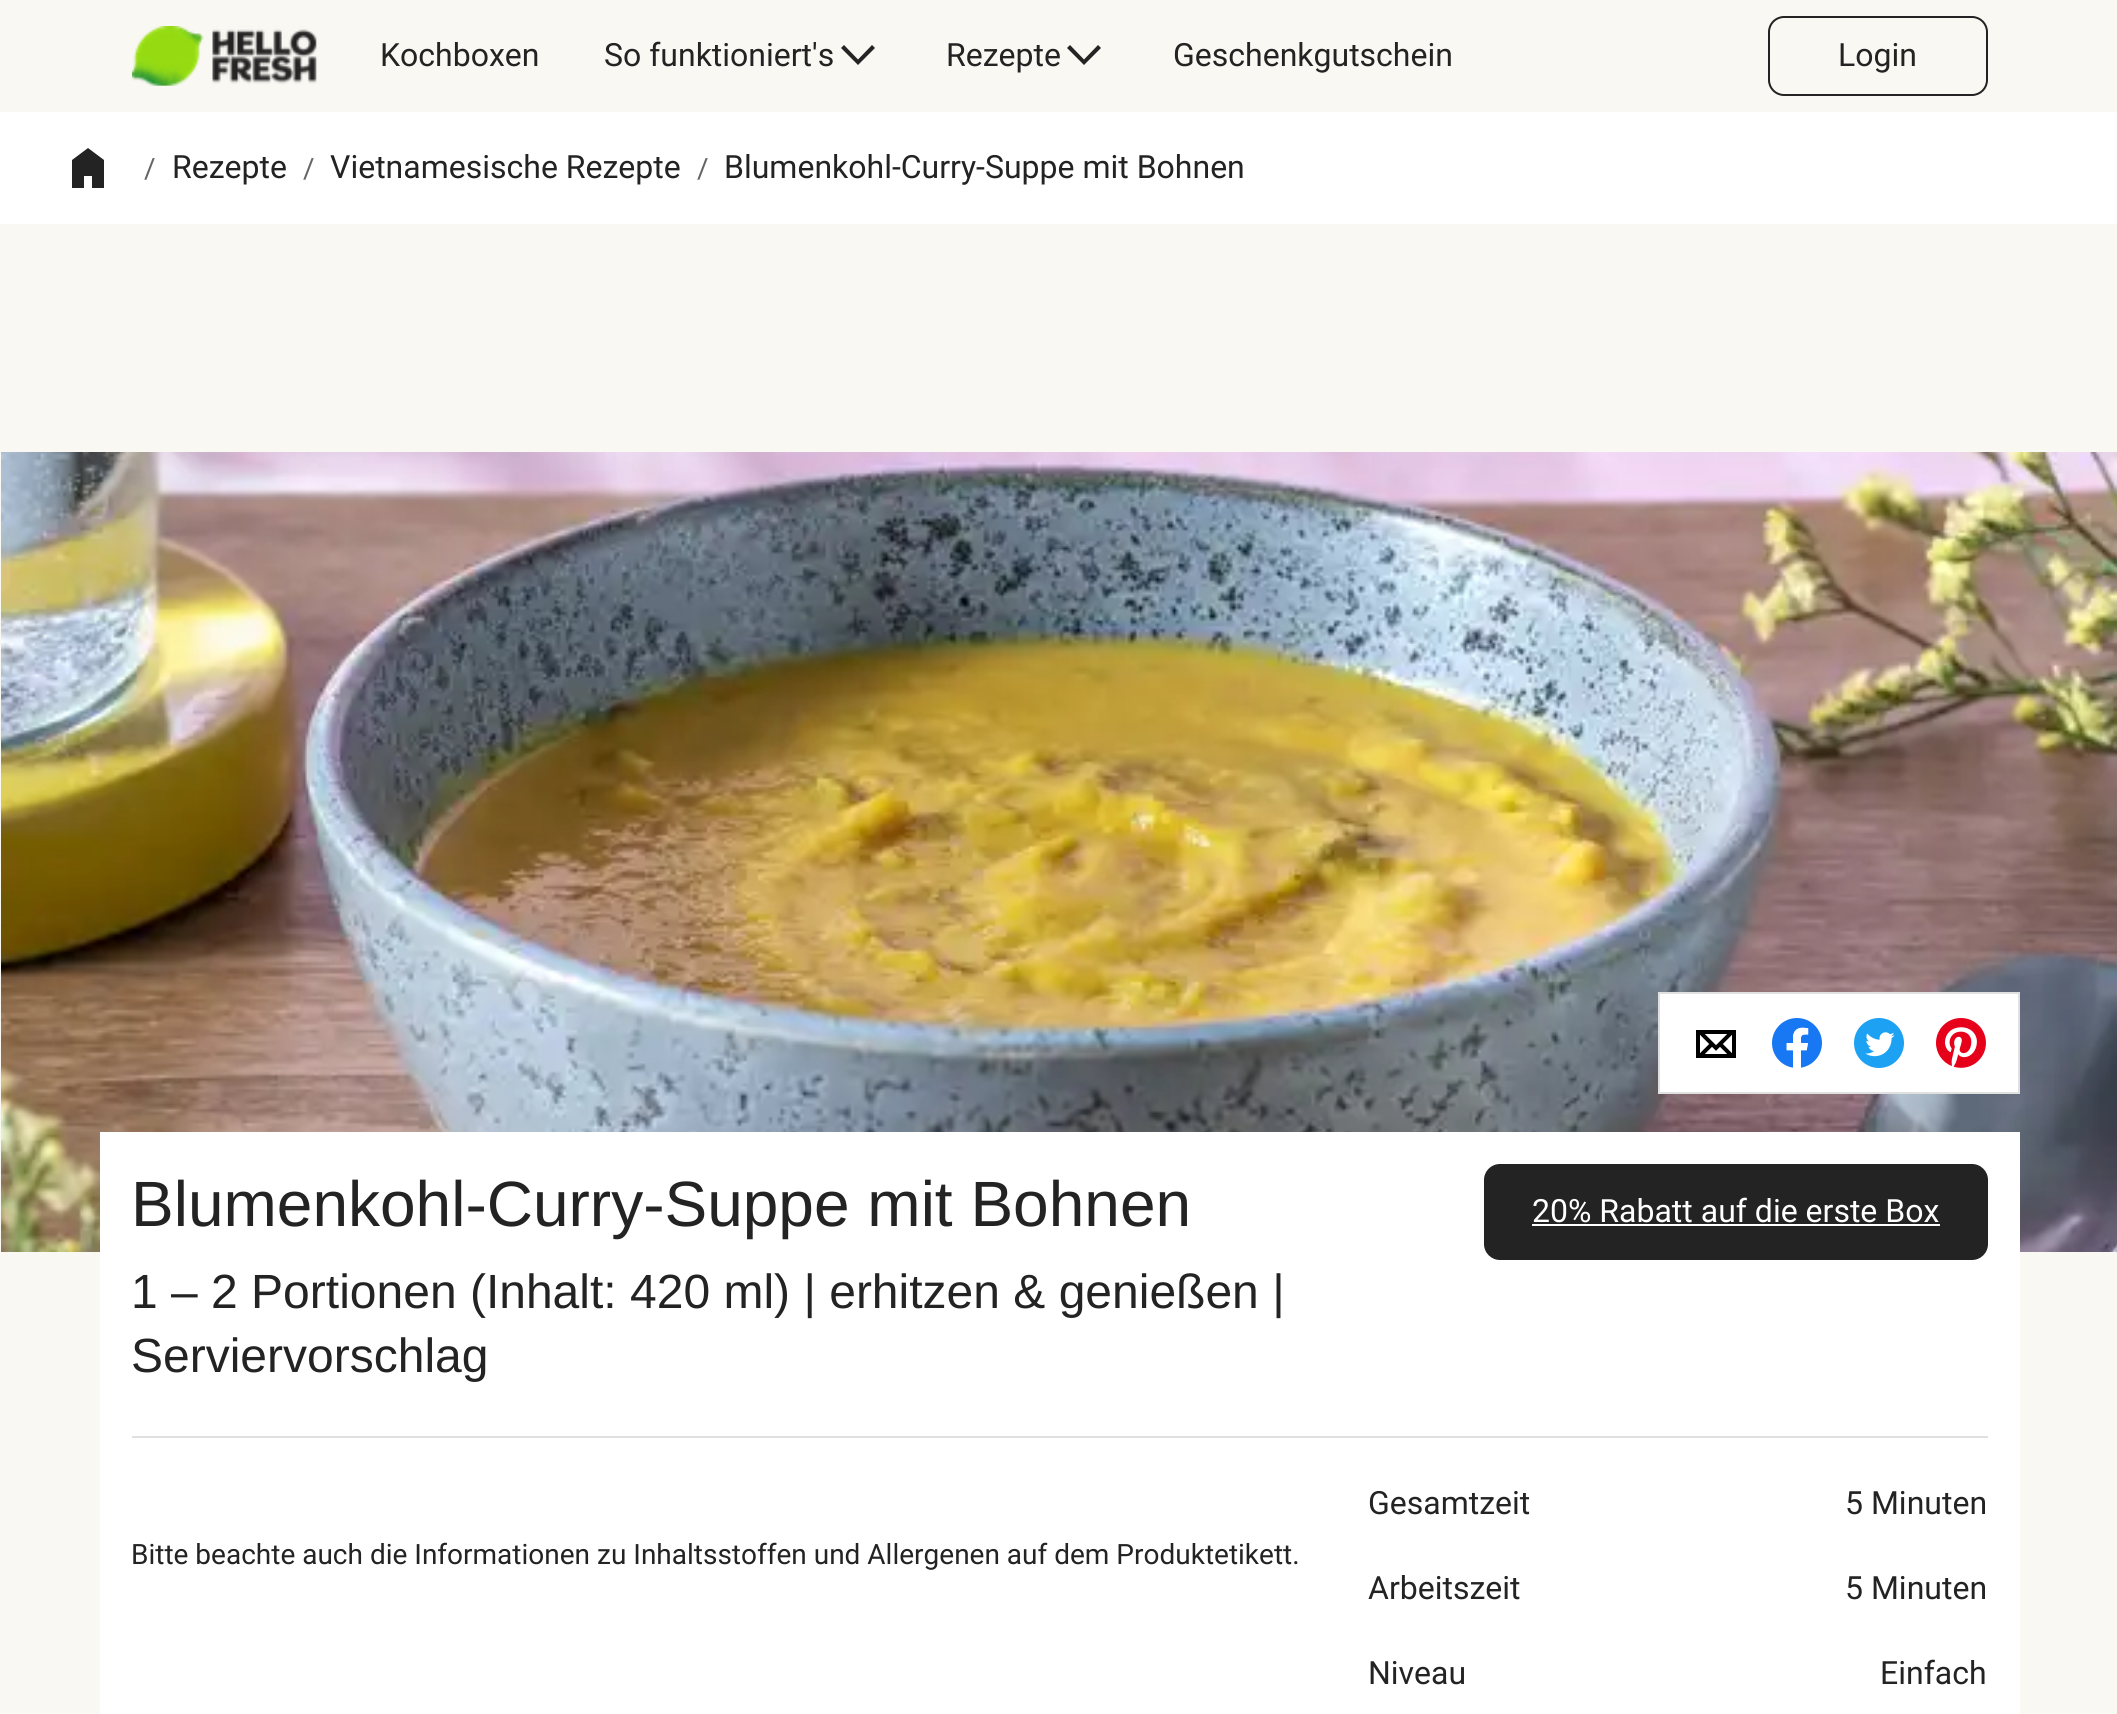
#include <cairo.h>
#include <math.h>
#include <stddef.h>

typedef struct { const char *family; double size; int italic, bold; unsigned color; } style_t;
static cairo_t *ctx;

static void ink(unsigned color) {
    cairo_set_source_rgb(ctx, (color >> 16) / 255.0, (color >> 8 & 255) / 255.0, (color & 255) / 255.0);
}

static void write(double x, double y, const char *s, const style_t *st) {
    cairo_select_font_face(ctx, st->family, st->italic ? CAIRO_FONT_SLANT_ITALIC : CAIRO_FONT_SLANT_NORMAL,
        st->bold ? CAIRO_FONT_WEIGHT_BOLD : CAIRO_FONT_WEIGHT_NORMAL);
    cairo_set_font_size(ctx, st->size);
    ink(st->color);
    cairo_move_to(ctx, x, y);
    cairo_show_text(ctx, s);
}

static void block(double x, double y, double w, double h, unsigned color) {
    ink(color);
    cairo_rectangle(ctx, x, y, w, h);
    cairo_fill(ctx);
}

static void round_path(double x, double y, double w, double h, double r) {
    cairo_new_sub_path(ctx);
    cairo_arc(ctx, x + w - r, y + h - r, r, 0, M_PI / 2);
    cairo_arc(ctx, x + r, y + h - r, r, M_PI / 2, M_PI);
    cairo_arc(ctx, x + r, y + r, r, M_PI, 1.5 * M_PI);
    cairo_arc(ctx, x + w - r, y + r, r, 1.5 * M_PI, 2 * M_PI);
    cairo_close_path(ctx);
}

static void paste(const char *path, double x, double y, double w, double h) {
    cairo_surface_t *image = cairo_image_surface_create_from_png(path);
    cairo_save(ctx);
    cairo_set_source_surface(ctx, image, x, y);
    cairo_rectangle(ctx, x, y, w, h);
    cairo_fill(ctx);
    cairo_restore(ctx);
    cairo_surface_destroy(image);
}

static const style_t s1 = {"Roboto", 32, 0, 0, 0x232323};
static const style_t s2 = {"Roboto", 28, 0, 0, 0x656565};
static const style_t s3 = {"Liberation Sans", 64, 0, 0, 0x232323};
static const style_t s4 = {"Liberation Sans", 48, 0, 0, 0x232323};
static const style_t s5 = {"Roboto", 32, 0, 0, 0xffffff};
static const style_t s6 = {"Roboto", 28, 0, 0, 0x232323};

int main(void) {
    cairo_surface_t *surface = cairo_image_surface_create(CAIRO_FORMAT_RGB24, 2117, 1714);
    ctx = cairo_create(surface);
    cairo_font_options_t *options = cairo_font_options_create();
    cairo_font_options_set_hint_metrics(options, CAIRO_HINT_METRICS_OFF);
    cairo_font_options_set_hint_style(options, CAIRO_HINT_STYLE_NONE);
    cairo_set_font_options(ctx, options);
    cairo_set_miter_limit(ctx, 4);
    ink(0xfaf8f3);
    cairo_paint(ctx);
    paste("pic1.png", 132, 26, 185, 60);
    write(380, 66, "Kochboxen", &s1);
    write(604, 66, "So funktioniert's", &s1);
    ink(0x242424);
    cairo_set_fill_rule(ctx, CAIRO_FILL_RULE_EVEN_ODD);
    cairo_new_path(ctx);
    cairo_move_to(ctx, 858, 65);
    cairo_line_to(ctx, 875, 48);
    cairo_line_to(ctx, 872, 45);
    cairo_line_to(ctx, 858, 59.5);
    cairo_line_to(ctx, 844, 45);
    cairo_line_to(ctx, 841, 48);
    cairo_close_path(ctx);
    cairo_fill(ctx);
    write(946, 66, "Rezepte", &s1);
    ink(0x242424);
    cairo_new_path(ctx);
    cairo_move_to(ctx, 1084, 65);
    cairo_line_to(ctx, 1101, 48);
    cairo_line_to(ctx, 1098, 45);
    cairo_line_to(ctx, 1084, 59.5);
    cairo_line_to(ctx, 1070, 45);
    cairo_line_to(ctx, 1067, 48);
    cairo_close_path(ctx);
    cairo_fill(ctx);
    write(1173, 66, "Geschenkgutschein", &s1);
    round_path(1769, 17, 218, 78, 15);
    cairo_stroke(ctx);
    write(1838, 66, "Login", &s1);
    block(0, 112, 2117, 112, 0xffffff);
    ink(0x232323);
    cairo_set_fill_rule(ctx, CAIRO_FILL_RULE_WINDING);
    cairo_new_path(ctx);
    cairo_move_to(ctx, 88, 148);
    cairo_line_to(ctx, 104, 160);
    cairo_line_to(ctx, 104, 188);
    cairo_line_to(ctx, 92, 188);
    cairo_line_to(ctx, 92, 176);
    cairo_line_to(ctx, 84, 176);
    cairo_line_to(ctx, 84, 188);
    cairo_line_to(ctx, 72, 188);
    cairo_line_to(ctx, 72, 160);
    cairo_close_path(ctx);
    cairo_fill(ctx);
    write(144, 178, "/", &s2);
    write(172, 178, "Rezepte", &s1);
    write(303, 178, "/", &s2);
    write(330, 178, "Vietnamesische Rezepte", &s1);
    write(697, 178, "/", &s2);
    write(724, 178, "Blumenkohl-Curry-Suppe mit Bohnen", &s1);
    paste("pic2.png", 1, 452, 2116, 800);
    ink(0xffffff);
    cairo_rectangle(ctx, 1659, 993, 360, 100);
    cairo_fill_preserve(ctx);
    ink(0xe0e0e0);
    cairo_stroke(ctx);
    paste("pic3.png", 1696, 1030, 40, 28);
    paste("pic4.png", 1772, 1018, 50, 50);
    paste("pic5.png", 1854, 1018, 50, 50);
    paste("pic6.png", 1936, 1018, 50, 50);
    block(100, 1132, 1920, 582, 0xffffff);
    write(131, 1226, "Blumenkohl-Curry-Suppe mit Bohnen", &s3);
    write(131, 1308, "1 – 2 Portionen (Inhalt: 420 ml) | erhitzen & genießen |", &s4);
    write(131, 1372, "Serviervorschlag", &s4);
    round_path(1484, 1164, 504, 96, 16);
    cairo_fill(ctx);
    write(1532, 1222, "20% Rabatt auf die erste Box", &s5);
    block(1532, 1224, 408, 2, 0xffffff);
    block(132, 1436, 1856, 2, 0xe0e0e0);
    write(131, 1564, "Bitte beachte auch die Informationen zu Inhaltsstoffen und Allergenen auf dem Produktetikett.", &s6);
    write(1368, 1514, "Gesamtzeit", &s1);
    write(1845, 1514, "5 Minuten", &s1);
    write(1368, 1599, "Arbeitszeit", &s1);
    write(1845, 1599, "5 Minuten", &s1);
    write(1368, 1684, "Niveau", &s1);
    write(1880, 1684, "Einfach", &s1);
    cairo_surface_write_to_png(surface, "screenshot.png");
    cairo_font_options_destroy(options);
    cairo_destroy(ctx);
    cairo_surface_destroy(surface);
    return 0;
}
